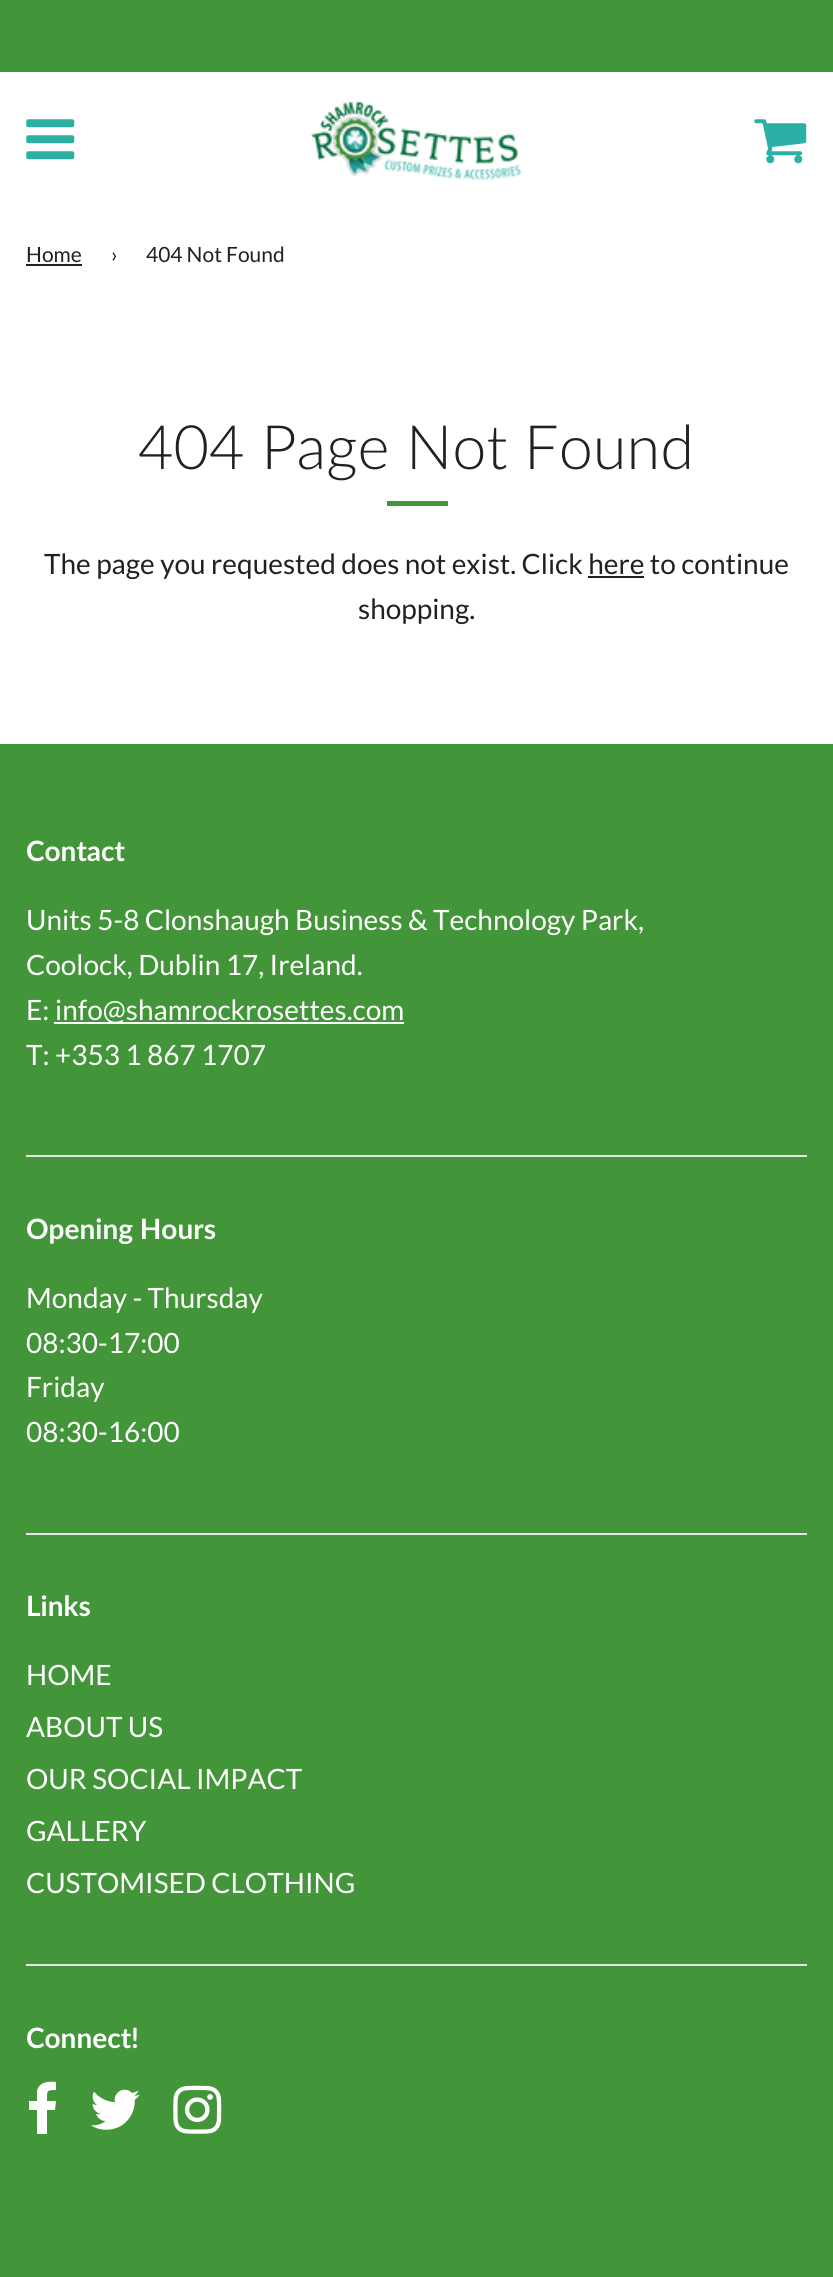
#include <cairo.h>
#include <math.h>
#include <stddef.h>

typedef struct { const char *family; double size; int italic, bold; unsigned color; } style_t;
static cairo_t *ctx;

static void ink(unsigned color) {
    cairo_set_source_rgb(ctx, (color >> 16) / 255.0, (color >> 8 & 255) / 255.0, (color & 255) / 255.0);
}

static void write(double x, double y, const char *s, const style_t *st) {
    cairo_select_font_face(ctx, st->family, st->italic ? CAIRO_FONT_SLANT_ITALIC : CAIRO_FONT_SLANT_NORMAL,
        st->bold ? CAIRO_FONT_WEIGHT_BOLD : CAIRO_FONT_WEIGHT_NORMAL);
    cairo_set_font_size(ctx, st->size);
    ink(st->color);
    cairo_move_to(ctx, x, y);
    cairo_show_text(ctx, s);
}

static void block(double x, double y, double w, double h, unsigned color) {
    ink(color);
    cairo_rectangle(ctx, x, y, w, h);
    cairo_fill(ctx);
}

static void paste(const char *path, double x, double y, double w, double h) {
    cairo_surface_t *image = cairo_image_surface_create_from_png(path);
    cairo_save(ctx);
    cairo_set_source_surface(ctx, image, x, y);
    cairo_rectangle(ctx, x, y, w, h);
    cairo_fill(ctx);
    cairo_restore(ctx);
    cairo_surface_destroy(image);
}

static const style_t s1 = {"Lato", 21, 0, 0, 0x212121};
static const style_t s2 = {"Lato Light", 61.25, 0, 0, 0x212121};
static const style_t s3 = {"Lato", 28, 0, 0, 0x212121};
static const style_t s4 = {"Lato", 28, 0, 1, 0xffffff};
static const style_t s5 = {"Lato", 28, 0, 0, 0xffffff};

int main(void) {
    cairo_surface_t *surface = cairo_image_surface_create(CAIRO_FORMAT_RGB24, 833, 2277);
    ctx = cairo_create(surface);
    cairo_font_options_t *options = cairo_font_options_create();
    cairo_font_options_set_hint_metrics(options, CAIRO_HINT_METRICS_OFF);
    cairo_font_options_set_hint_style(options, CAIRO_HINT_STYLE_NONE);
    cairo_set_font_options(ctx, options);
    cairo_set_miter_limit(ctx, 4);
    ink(0xffffff);
    cairo_paint(ctx);
    block(0, 0, 833, 72, 0x439539);
    paste("pic1.png", 26, 119, 49, 41);
    paste("pic2.png", 311, 100, 211, 80);
    paste("pic3.png", 754, 119, 53, 45);
    write(26, 262, "Home", &s1);
    block(26, 264, 56, 2, 0x212121);
    write(111, 262, "›", &s1);
    write(146, 262, "404 Not Found", &s1);
    write(138, 469, "404 Page Not Found", &s2);
    block(387, 501, 61, 5, 0x439539);
    write(44, 574, "The page you requested does not exist. Click here to continue", &s3);
    block(588, 576, 56, 2, 0x212121);
    write(358, 619, "shopping.", &s3);
    block(0, 744, 833, 1533, 0x439539);
    write(26, 861, "Contact", &s4);
    write(26, 930, "Units 5-8 Clonshaugh Business & Technology Park,", &s5);
    write(26, 975, "Coolock, Dublin 17, Ireland.", &s5);
    write(26, 1020, "E:", &s5);
    block(54, 1022, 350, 2, 0xffffff);
    write(55, 1020, "info@shamrockrosettes.com", &s5);
    write(26, 1065, "T: +353 1 867 1707", &s5);
    block(26, 1155, 781, 2, 0xe6e6e6);
    write(26, 1239, "Opening Hours", &s4);
    write(26, 1308, "Monday - Thursday", &s5);
    write(26, 1353, "08:30-17:00", &s5);
    write(26, 1397, "Friday", &s5);
    write(26, 1442, "08:30-16:00", &s5);
    block(26, 1533, 781, 2, 0xe6e6e6);
    write(26, 1616, "Links", &s4);
    write(26, 1685, "HOME", &s5);
    write(26, 1737, "ABOUT US", &s5);
    write(26, 1789, "OUR SOCIAL IMPACT", &s5);
    write(26, 1841, "GALLERY", &s5);
    write(26, 1893, "CUSTOMISED CLOTHING", &s5);
    block(26, 1964, 781, 2, 0xe6e6e6);
    write(26, 2048, "Connect!", &s4);
    cairo_new_path(ctx);
    cairo_move_to(ctx, 56, 2082);
    cairo_line_to(ctx, 56, 2090);
    cairo_curve_to(ctx, 46, 2090, 47, 2091, 47, 2101);
    cairo_line_to(ctx, 56, 2101);
    cairo_line_to(ctx, 55, 2110);
    cairo_line_to(ctx, 47, 2110);
    cairo_line_to(ctx, 47, 2134);
    cairo_line_to(ctx, 37, 2134);
    cairo_line_to(ctx, 37, 2110);
    cairo_line_to(ctx, 29, 2110);
    cairo_line_to(ctx, 29, 2101);
    cairo_line_to(ctx, 37, 2101);
    cairo_line_to(ctx, 37, 2091);
    cairo_curve_to(ctx, 39, 2082, 48, 2081, 56, 2082);
    cairo_close_path(ctx);
    cairo_fill(ctx);
    paste("pic4.png", 90, 2089, 50, 41);
    paste("pic5.png", 173, 2085, 49, 49);
    cairo_surface_write_to_png(surface, "screenshot.png");
    cairo_font_options_destroy(options);
    cairo_destroy(ctx);
    cairo_surface_destroy(surface);
    return 0;
}
